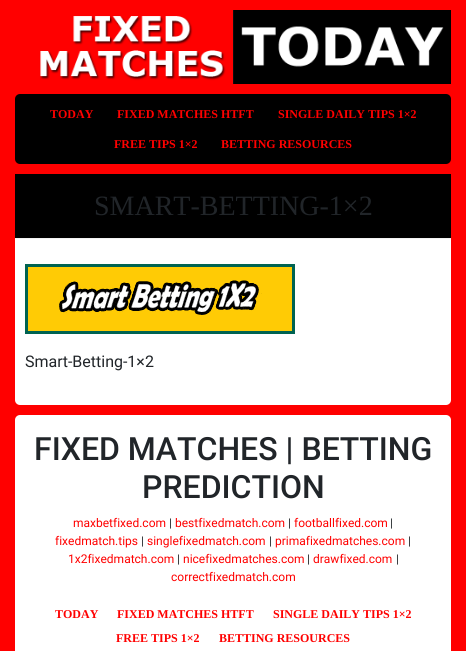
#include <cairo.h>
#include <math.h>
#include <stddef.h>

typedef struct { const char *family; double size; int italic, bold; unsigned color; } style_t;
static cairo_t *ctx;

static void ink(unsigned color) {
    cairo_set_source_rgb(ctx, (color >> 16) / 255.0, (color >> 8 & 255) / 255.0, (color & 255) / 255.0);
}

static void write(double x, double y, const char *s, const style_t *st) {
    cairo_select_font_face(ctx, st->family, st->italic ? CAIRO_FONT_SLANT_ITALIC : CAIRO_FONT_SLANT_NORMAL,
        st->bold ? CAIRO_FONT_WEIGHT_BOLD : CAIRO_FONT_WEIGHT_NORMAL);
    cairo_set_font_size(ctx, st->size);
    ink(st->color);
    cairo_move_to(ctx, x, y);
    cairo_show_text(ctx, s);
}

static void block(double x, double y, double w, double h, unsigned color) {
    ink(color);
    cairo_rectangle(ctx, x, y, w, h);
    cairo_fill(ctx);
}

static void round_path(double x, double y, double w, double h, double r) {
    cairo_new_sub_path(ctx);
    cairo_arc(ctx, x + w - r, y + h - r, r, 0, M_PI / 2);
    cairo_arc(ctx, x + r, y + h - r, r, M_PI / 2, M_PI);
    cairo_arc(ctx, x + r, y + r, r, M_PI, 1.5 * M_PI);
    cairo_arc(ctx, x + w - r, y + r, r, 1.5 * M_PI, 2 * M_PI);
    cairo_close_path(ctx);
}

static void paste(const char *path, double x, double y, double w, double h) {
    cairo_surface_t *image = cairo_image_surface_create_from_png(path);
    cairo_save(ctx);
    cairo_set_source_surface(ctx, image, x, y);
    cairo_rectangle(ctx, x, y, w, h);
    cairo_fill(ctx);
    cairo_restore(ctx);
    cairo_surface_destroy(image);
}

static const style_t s1 = {"Liberation Serif", 12, 0, 1, 0xff0000};
static const style_t s2 = {"Liberation Serif", 28, 0, 0, 0x212529};
static const style_t s3 = {"Roboto", 16, 0, 0, 0x212529};
static const style_t s4 = {"Roboto Medium", 32, 0, 0, 0x212529};
static const style_t s5 = {"Roboto", 12, 0, 0, 0xff0000};
static const style_t s6 = {"Roboto", 12, 0, 0, 0x212529};

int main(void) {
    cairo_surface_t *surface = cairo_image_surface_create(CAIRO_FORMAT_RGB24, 466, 651);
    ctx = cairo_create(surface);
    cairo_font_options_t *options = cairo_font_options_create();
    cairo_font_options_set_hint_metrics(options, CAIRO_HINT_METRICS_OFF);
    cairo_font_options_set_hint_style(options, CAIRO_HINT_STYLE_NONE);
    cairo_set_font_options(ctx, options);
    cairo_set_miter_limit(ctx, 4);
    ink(0xff0000);
    cairo_paint(ctx);
    paste("pic1.png", 15, 10, 436, 74);
    ink(0x000000);
    round_path(15, 94, 436, 70, 5);
    cairo_fill(ctx);
    write(50, 118, "TODAY", &s1);
    write(117, 118, "FIXED MATCHES HTFT", &s1);
    write(278, 118, "SINGLE DAILY TIPS 1×2", &s1);
    write(114, 148, "FREE TIPS 1×2", &s1);
    write(221, 148, "BETTING RESOURCES", &s1);
    ink(0xffffff);
    round_path(15, 174, 436, 231, 5);
    cairo_fill(ctx);
    block(15, 174, 436, 64, 0x000000);
    block(15, 238, 436, 1, 0xf3f3f3);
    write(94, 215, "SMART-BETTING-1×2", &s2);
    paste("pic2.png", 25, 264, 270, 70);
    write(25, 367, "Smart-Betting-1×2", &s3);
    ink(0xffffff);
    round_path(15, 415, 436, 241, 5);
    cairo_fill(ctx);
    write(34, 460, "FIXED MATCHES | BETTING", &s4);
    write(142, 498, "PREDICTION", &s4);
    write(73, 527, "maxbetfixed.com", &s5);
    write(169, 527, "|", &s6);
    write(175, 527, "bestfixedmatch.com", &s5);
    write(288, 527, "|", &s6);
    write(294, 527, "footballfixed.com", &s5);
    write(390, 527, "|", &s6);
    write(55, 545, "fixedmatch.tips", &s5);
    write(141, 545, "|", &s6);
    write(147, 545, "singlefixedmatch.com", &s5);
    write(269, 545, "|", &s6);
    write(275, 545, "primafixedmatches.com", &s5);
    write(408, 545, "|", &s6);
    write(68, 563, "1x2fixedmatch.com", &s5);
    write(177, 563, "|", &s6);
    write(183, 563, "nicefixedmatches.com", &s5);
    write(307, 563, "|", &s6);
    write(313, 563, "drawfixed.com", &s5);
    write(396, 563, "|", &s6);
    write(171, 581, "correctfixedmatch.com", &s5);
    write(55, 618, "TODAY", &s1);
    write(117, 618, "FIXED MATCHES HTFT", &s1);
    write(273, 618, "SINGLE DAILY TIPS 1×2", &s1);
    write(116, 642, "FREE TIPS 1×2", &s1);
    write(219, 642, "BETTING RESOURCES", &s1);
    cairo_surface_write_to_png(surface, "screenshot.png");
    cairo_font_options_destroy(options);
    cairo_destroy(ctx);
    cairo_surface_destroy(surface);
    return 0;
}
